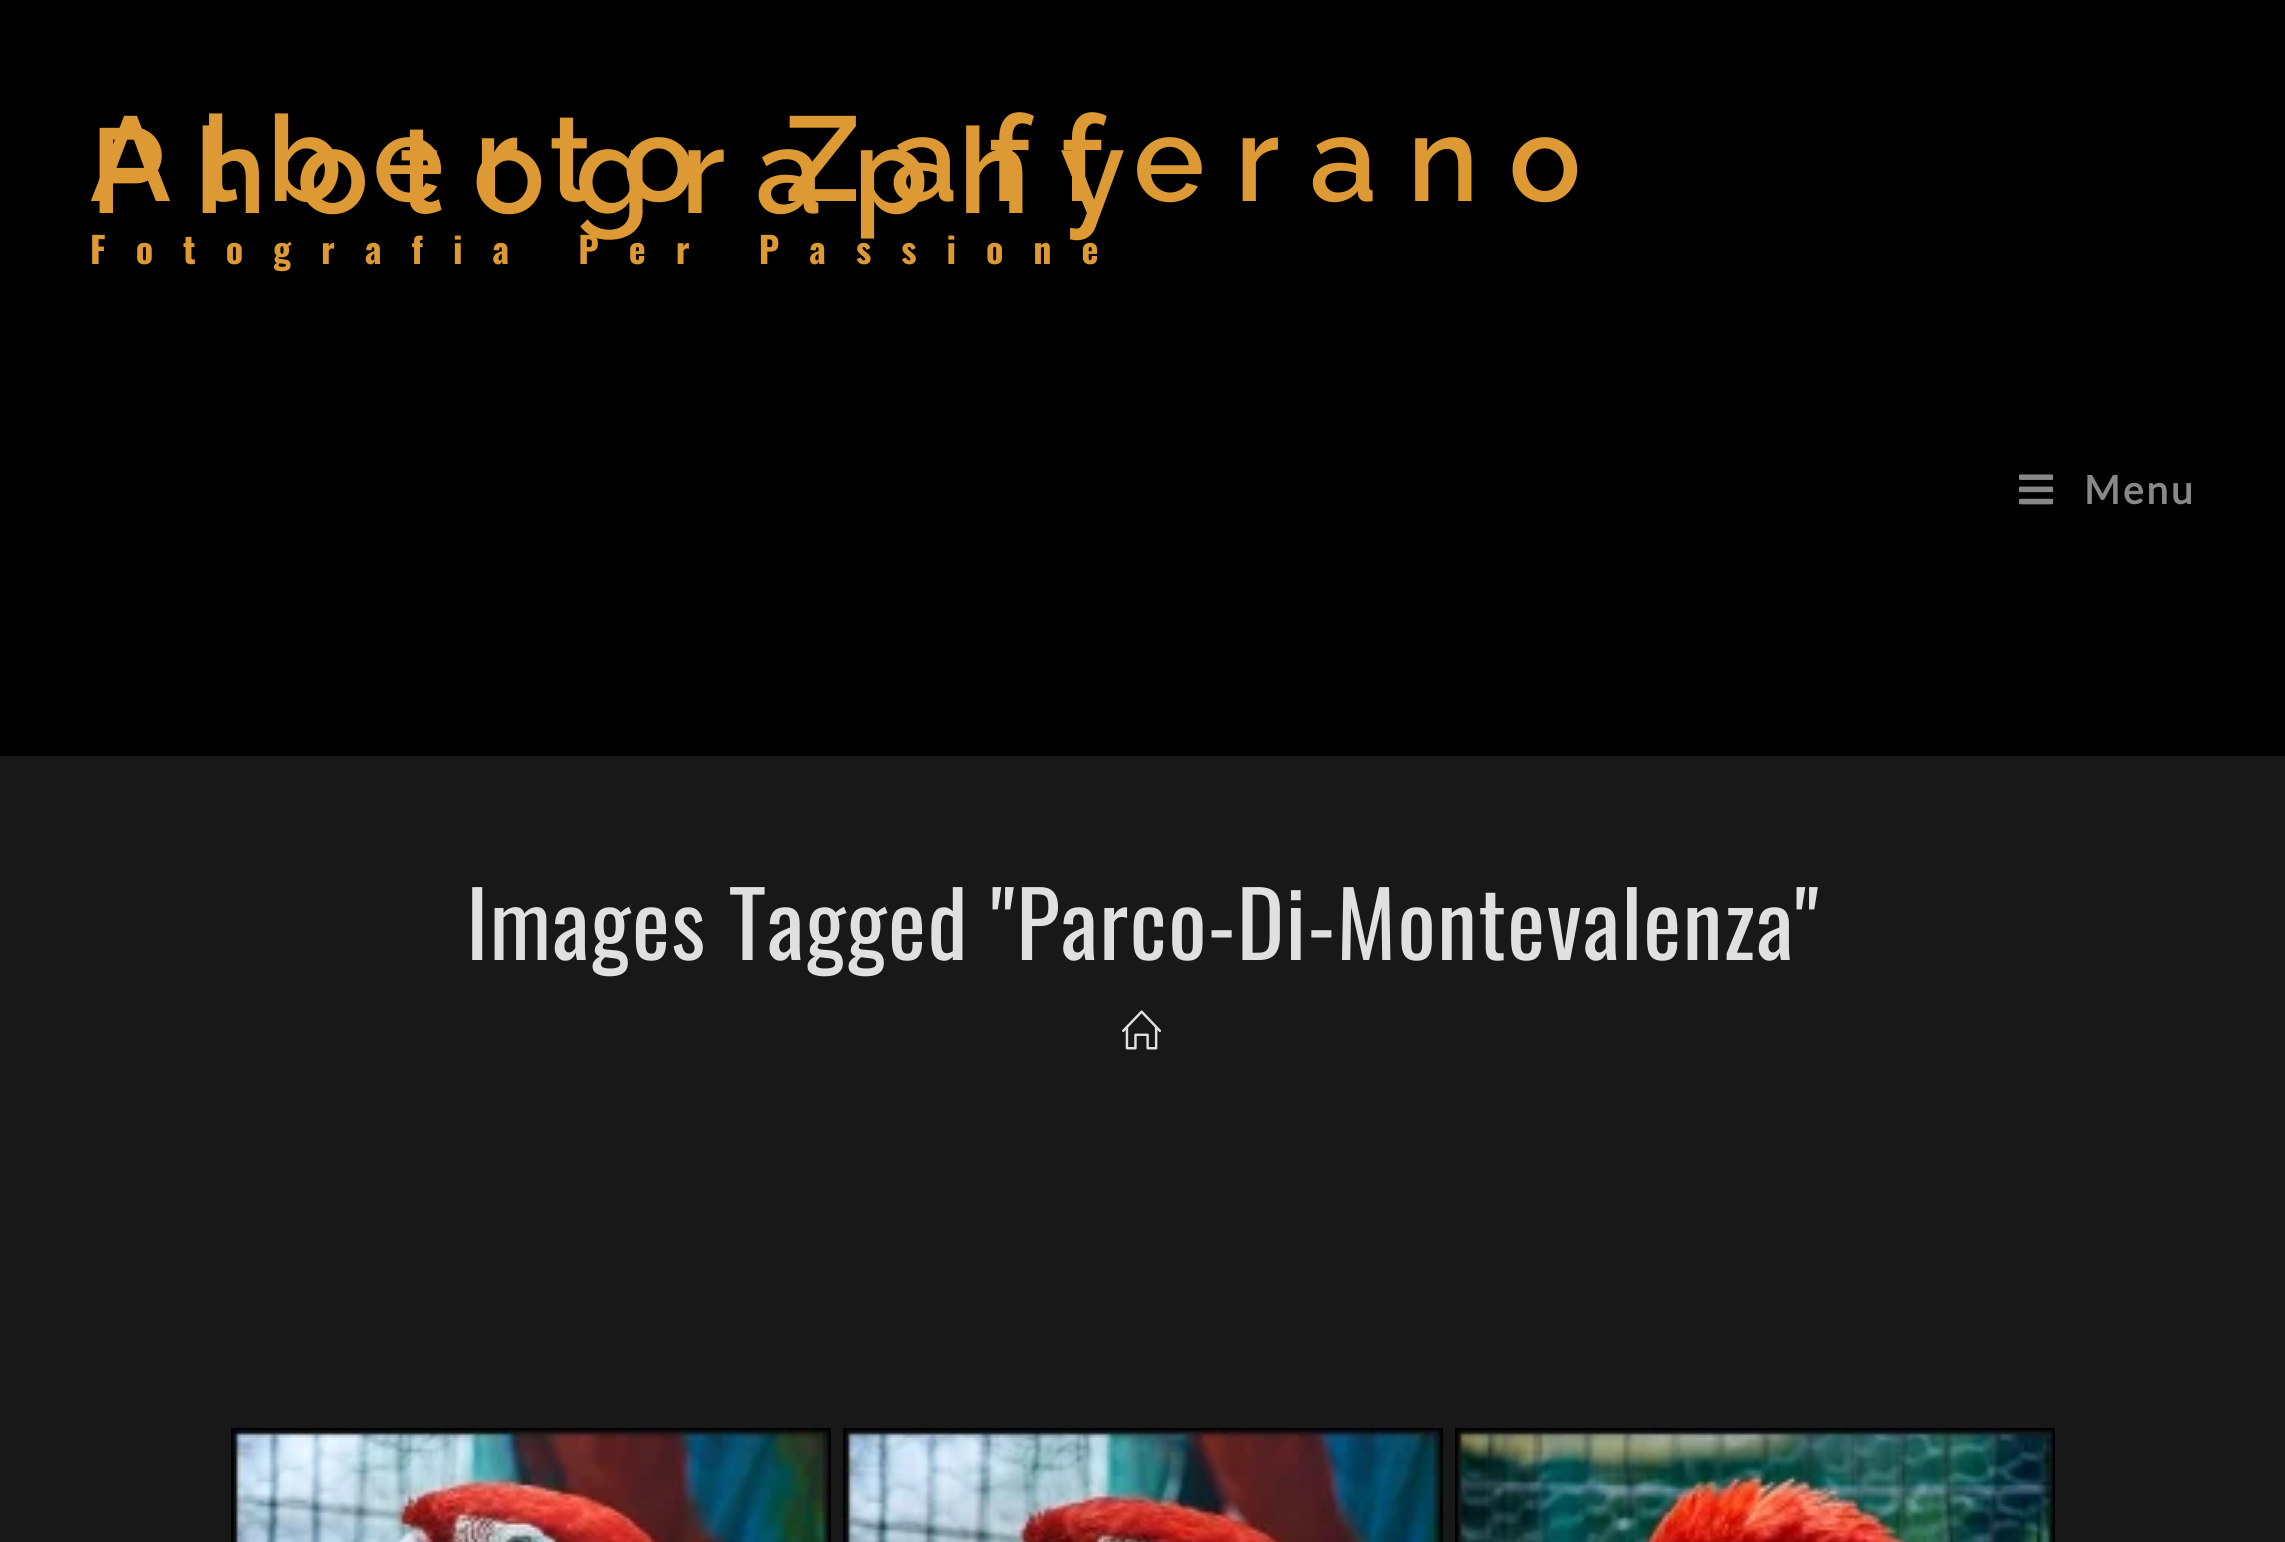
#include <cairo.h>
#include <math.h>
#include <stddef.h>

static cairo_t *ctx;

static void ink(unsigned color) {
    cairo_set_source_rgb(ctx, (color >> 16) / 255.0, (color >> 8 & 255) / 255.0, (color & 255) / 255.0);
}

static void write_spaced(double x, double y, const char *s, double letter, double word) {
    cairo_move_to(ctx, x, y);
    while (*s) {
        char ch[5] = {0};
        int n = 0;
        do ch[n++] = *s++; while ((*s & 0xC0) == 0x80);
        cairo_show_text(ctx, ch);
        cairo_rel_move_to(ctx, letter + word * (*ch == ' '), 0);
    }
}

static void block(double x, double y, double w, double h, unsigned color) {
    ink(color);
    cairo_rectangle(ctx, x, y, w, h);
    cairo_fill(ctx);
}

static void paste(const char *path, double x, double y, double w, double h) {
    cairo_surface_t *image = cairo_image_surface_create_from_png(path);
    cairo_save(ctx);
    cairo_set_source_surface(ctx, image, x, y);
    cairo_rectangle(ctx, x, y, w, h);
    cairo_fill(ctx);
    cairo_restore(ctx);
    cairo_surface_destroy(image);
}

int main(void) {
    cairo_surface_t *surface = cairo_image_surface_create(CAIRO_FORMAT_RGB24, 2285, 1542);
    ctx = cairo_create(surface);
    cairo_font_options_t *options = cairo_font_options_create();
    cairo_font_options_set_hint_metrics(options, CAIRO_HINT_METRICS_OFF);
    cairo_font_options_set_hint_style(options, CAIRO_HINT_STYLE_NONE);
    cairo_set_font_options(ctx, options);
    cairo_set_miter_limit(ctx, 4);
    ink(0x181818);
    cairo_paint(ctx);
    block(0, 0, 2285, 756, 0x000000);
    cairo_select_font_face(ctx, "Raleway SemiBold", CAIRO_FONT_SLANT_NORMAL, CAIRO_FONT_WEIGHT_NORMAL);
    cairo_set_font_size(ctx, 120);
    ink(0xdd9933);
    write_spaced(90, 201, "Alberto Zafferano", 30, 0);
    write_spaced(90, 213, "Photography", 30, 0);
    cairo_select_font_face(ctx, "Oswald", CAIRO_FONT_SLANT_NORMAL, CAIRO_FONT_WEIGHT_BOLD);
    cairo_set_font_size(ctx, 36);
    write_spaced(90, 264, "Fotografia Per Passione", 30, 0);
    paste("pic1.png", 2019, 474, 35, 31);
    cairo_select_font_face(ctx, "Lato", CAIRO_FONT_SLANT_NORMAL, CAIRO_FONT_WEIGHT_BOLD);
    cairo_set_font_size(ctx, 39);
    ink(0x888888);
    write_spaced(2084, 504, "Menu", 3, 0);
    cairo_select_font_face(ctx, "Oswald", CAIRO_FONT_SLANT_NORMAL, CAIRO_FONT_WEIGHT_NORMAL);
    cairo_set_font_size(ctx, 90);
    ink(0xe0e0e0);
    write_spaced(466, 960, "Images Tagged \"Parco-Di-Montevalenza\"", 1.5, 0);
    paste("pic2.png", 1122, 1010, 40, 40);
    paste("pic3.png", 231, 1428, 600, 114);
    paste("pic4.png", 843, 1428, 600, 114);
    paste("pic5.png", 1455, 1428, 600, 114);
    cairo_surface_write_to_png(surface, "screenshot.png");
    cairo_font_options_destroy(options);
    cairo_destroy(ctx);
    cairo_surface_destroy(surface);
    return 0;
}
